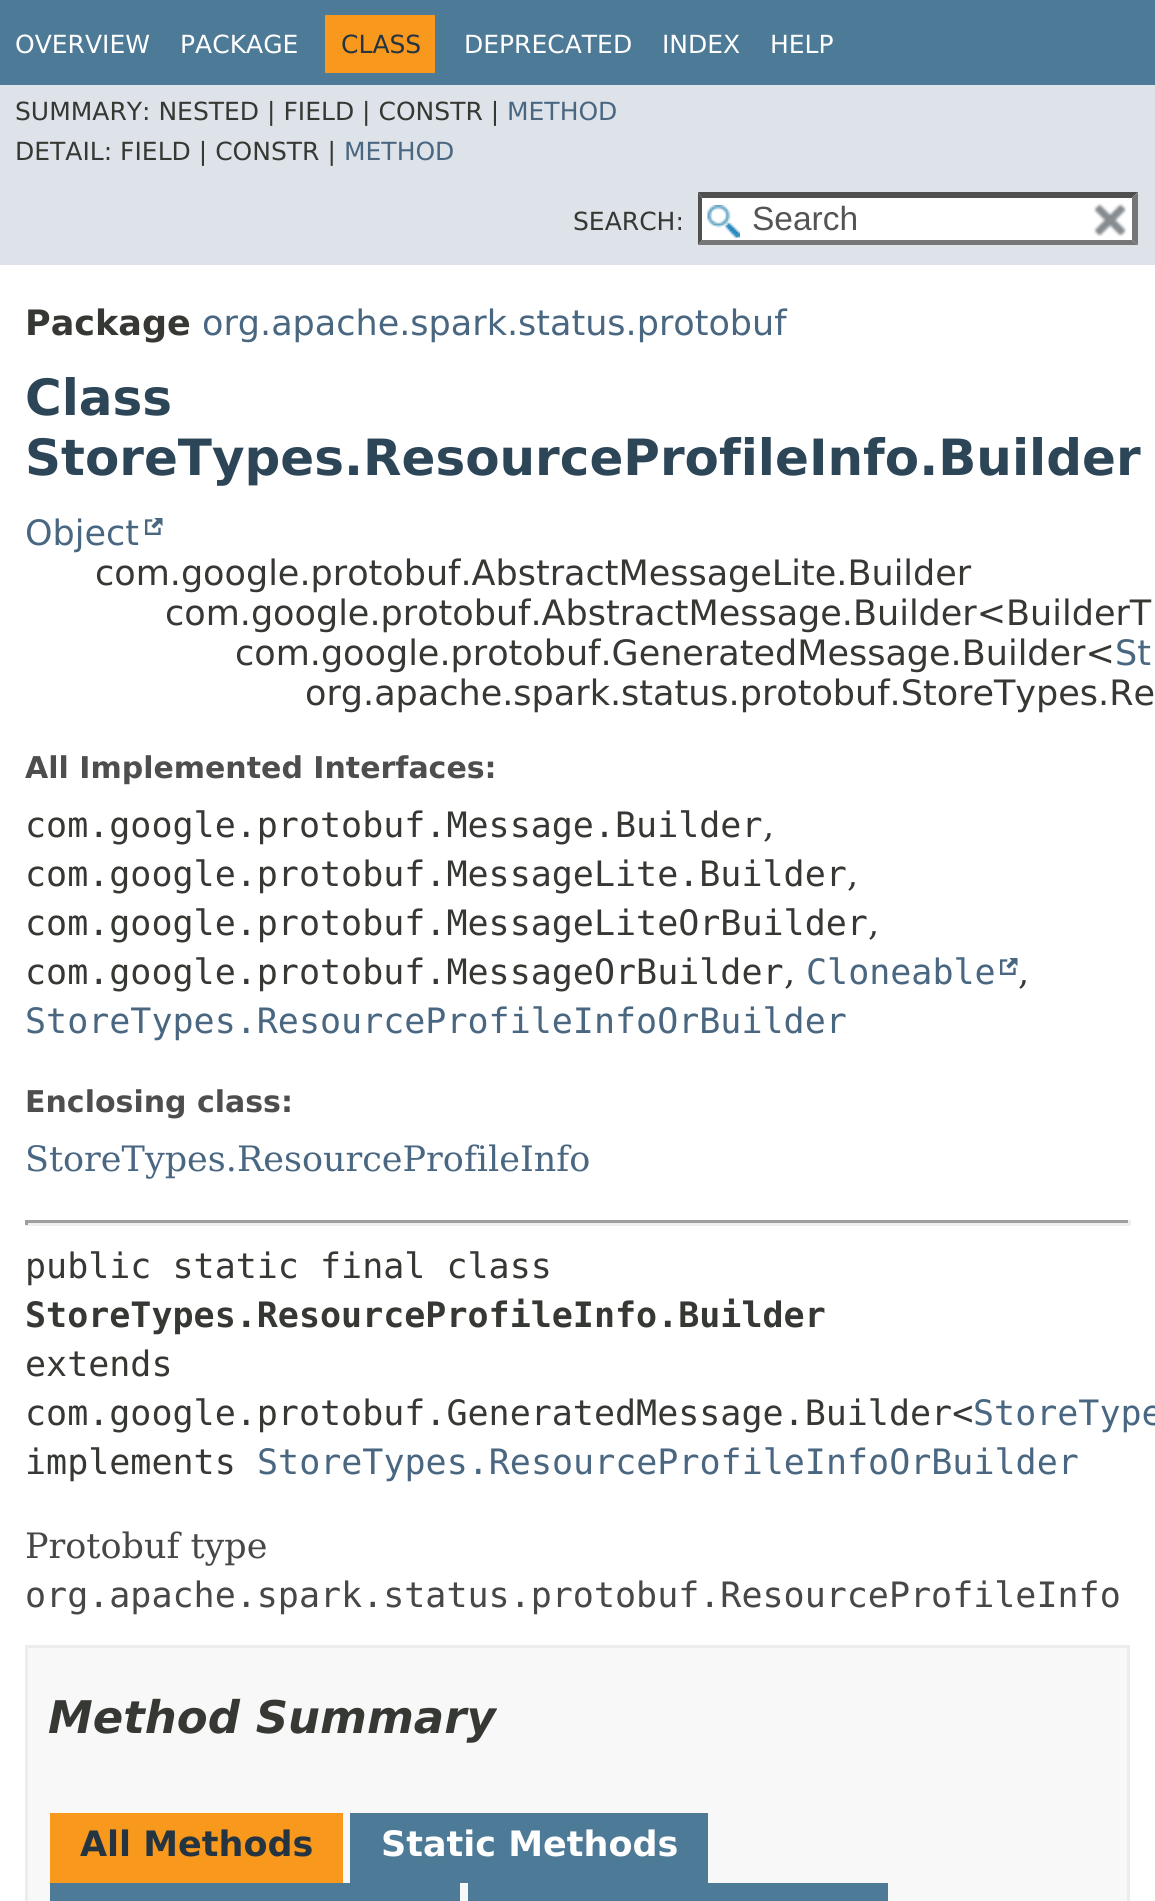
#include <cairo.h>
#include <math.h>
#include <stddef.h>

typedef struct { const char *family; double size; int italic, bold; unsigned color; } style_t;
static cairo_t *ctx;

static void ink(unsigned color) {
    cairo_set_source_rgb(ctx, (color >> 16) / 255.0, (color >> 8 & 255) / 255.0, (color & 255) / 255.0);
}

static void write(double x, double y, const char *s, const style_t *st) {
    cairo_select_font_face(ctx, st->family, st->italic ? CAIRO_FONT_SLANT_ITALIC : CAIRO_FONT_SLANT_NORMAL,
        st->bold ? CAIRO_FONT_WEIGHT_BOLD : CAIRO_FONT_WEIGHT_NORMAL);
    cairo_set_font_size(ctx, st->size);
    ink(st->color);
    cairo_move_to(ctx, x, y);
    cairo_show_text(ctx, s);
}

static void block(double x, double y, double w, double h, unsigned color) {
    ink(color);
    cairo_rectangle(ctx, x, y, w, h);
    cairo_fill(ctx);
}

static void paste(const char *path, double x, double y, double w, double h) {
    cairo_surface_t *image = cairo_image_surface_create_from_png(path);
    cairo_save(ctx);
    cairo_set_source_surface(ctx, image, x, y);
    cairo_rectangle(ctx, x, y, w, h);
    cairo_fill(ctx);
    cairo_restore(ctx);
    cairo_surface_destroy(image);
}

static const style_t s1 = {"DejaVu Sans", 25, 0, 0, 0xffffff};
static const style_t s2 = {"DejaVu Sans", 25, 0, 0, 0x253441};
static const style_t s3 = {"DejaVu Sans", 25, 0, 0, 0x353833};
static const style_t s4 = {"DejaVu Sans", 25, 0, 0, 0x4a6782};
static const style_t s5 = {"Liberation Sans", 33.5, 0, 0, 0x545454};
static const style_t s6 = {"DejaVu Sans", 35, 0, 1, 0x353833};
static const style_t s7 = {"DejaVu Sans", 35, 0, 0, 0x4a6782};
static const style_t s8 = {"DejaVu Sans", 50, 0, 1, 0x2c4557};
static const style_t s9 = {"DejaVu Sans", 35, 0, 0, 0x353833};
static const style_t s10 = {"DejaVu Sans", 30, 0, 1, 0x4e4e4e};
static const style_t s11 = {"DejaVu Sans Mono", 35, 0, 0, 0x353833};
static const style_t s12 = {"DejaVu Serif", 35, 0, 0, 0x353833};
static const style_t s13 = {"DejaVu Sans Mono", 35, 0, 0, 0x4a6782};
static const style_t s14 = {"DejaVu Serif", 35, 0, 0, 0x4a6782};
static const style_t s15 = {"DejaVu Sans Mono", 35, 0, 1, 0x353833};
static const style_t s16 = {"DejaVu Serif", 35, 0, 0, 0x474747};
static const style_t s17 = {"DejaVu Sans Mono", 35, 0, 0, 0x474747};
static const style_t s18 = {"DejaVu Sans", 45, 1, 1, 0x353833};
static const style_t s19 = {"DejaVu Sans", 35, 0, 1, 0x253441};
static const style_t s20 = {"DejaVu Sans", 35, 0, 1, 0xffffff};

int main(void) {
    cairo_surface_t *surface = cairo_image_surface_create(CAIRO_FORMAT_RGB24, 1155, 1901);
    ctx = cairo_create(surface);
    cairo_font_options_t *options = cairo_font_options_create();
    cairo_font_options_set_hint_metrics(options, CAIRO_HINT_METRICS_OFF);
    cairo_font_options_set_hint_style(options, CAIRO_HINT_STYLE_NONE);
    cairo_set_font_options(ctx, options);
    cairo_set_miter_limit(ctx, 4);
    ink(0xffffff);
    cairo_paint(ctx);
    block(0, 0, 1155, 85, 0x4d7a97);
    write(15, 53, "OVERVIEW", &s1);
    write(180, 53, "PACKAGE", &s1);
    block(325, 15, 110, 58, 0xf8981d);
    write(341, 53, "CLASS", &s2);
    write(464, 53, "DEPRECATED", &s1);
    write(662, 53, "INDEX", &s1);
    write(770, 53, "HELP", &s1);
    block(0, 85, 1155, 180, 0xdee3e9);
    write(15, 120, "SUMMARY: NESTED | FIELD | CONSTR |", &s3);
    write(507, 120, "METHOD", &s4);
    write(15, 160, "DETAIL: FIELD | CONSTR |", &s3);
    write(344, 160, "METHOD", &s4);
    write(573, 230, "SEARCH:", &s3);
    block(698, 193, 440, 52, 0xffffff);
    paste("pic1.png", 707, 205, 33, 33);
    ink(0x4f4f4f);
    cairo_new_path(ctx);
    cairo_move_to(ctx, 698, 192);
    cairo_line_to(ctx, 1138, 192);
    cairo_line_to(ctx, 1132, 198);
    cairo_line_to(ctx, 702, 198);
    cairo_close_path(ctx);
    cairo_fill(ctx);
    ink(0x767676);
    cairo_new_path(ctx);
    cairo_move_to(ctx, 1138, 192);
    cairo_line_to(ctx, 1138, 245);
    cairo_line_to(ctx, 1132, 240);
    cairo_line_to(ctx, 1132, 198);
    cairo_close_path(ctx);
    cairo_fill(ctx);
    cairo_new_path(ctx);
    cairo_move_to(ctx, 1138, 245);
    cairo_line_to(ctx, 698, 245);
    cairo_line_to(ctx, 702, 240);
    cairo_line_to(ctx, 1132, 240);
    cairo_close_path(ctx);
    cairo_fill(ctx);
    ink(0x4f4f4f);
    cairo_new_path(ctx);
    cairo_move_to(ctx, 698, 245);
    cairo_line_to(ctx, 698, 192);
    cairo_line_to(ctx, 702, 198);
    cairo_line_to(ctx, 702, 240);
    cairo_close_path(ctx);
    cairo_fill(ctx);
    write(752, 230, "Search", &s5);
    paste("pic2.png", 1093, 203, 34, 34);
    write(25, 335, "Package", &s6);
    write(202, 335, "org.apache.spark.status.protobuf", &s7);
    write(25, 415, "Class", &s8);
    write(25, 475, "StoreTypes.ResourceProfileInfo.Builder", &s8);
    write(25, 545, "Object", &s7);
    paste("pic3.png", 145, 518, 18, 17);
    write(95, 585, "com.google.protobuf.AbstractMessageLite.Builder", &s9);
    write(165, 625, "com.google.protobuf.AbstractMessage.Builder<BuilderT", &s9);
    write(235, 665, "com.google.protobuf.GeneratedMessage.Builder<", &s9);
    write(1115, 665, "St", &s7);
    write(305, 705, "org.apache.spark.status.protobuf.StoreTypes.Re", &s9);
    write(25, 778, "All Implemented Interfaces:", &s10);
    write(25, 837, "com.google.protobuf.Message.Builder", &s11);
    write(763, 837, ",", &s12);
    write(25, 886, "com.google.protobuf.MessageLite.Builder", &s11);
    write(847, 886, ",", &s12);
    write(25, 935, "com.google.protobuf.MessageLiteOrBuilder", &s11);
    write(868, 935, ",", &s12);
    write(25, 984, "com.google.protobuf.MessageOrBuilder", &s11);
    write(784, 984, ",", &s12);
    write(806, 984, "Cloneable", &s13);
    paste("pic3.png", 1000, 958, 18, 17);
    write(1018, 984, ",", &s12);
    write(25, 1033, "StoreTypes.ResourceProfileInfoOrBuilder", &s13);
    write(25, 1112, "Enclosing class:", &s10);
    write(25, 1171, "StoreTypes.ResourceProfileInfo", &s14);
    block(25, 1220, 1105, 3, 0x9f9f9f);
    block(1128, 1220, 3, 5, 0xeeeeee);
    block(25, 1223, 1105, 3, 0xeeeeee);
    block(25, 1220, 3, 5, 0x9f9f9f);
    write(25, 1278, "public static final class", &s11);
    write(25, 1327, "StoreTypes.ResourceProfileInfo.Builder", &s15);
    write(25, 1376, "extends", &s11);
    write(25, 1425, "com.google.protobuf.GeneratedMessage.Builder<", &s11);
    write(973, 1425, "StoreType", &s13);
    write(25, 1474, "implements", &s11);
    write(257, 1474, "StoreTypes.ResourceProfileInfoOrBuilder", &s13);
    write(25, 1558, "Protobuf type", &s16);
    write(25, 1607, "org.apache.spark.status.protobuf.ResourceProfileInfo", &s17);
    ink(0xf8f8f8);
    cairo_rectangle(ctx, 26.5, 1646.5, 1102, 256);
    cairo_fill_preserve(ctx);
    ink(0xededed);
    cairo_set_line_width(ctx, 3);
    cairo_stroke(ctx);
    write(48, 1733, "Method Summary", &s18);
    block(50, 1813, 293, 70, 0xf8981d);
    write(80, 1856, "All Methods", &s19);
    block(350, 1813, 358, 70, 0x4d7a97);
    write(381, 1856, "Static Methods", &s20);
    block(50, 1883, 410, 18, 0x4d7a97);
    block(468, 1883, 420, 18, 0x4d7a97);
    cairo_surface_write_to_png(surface, "screenshot.png");
    cairo_font_options_destroy(options);
    cairo_destroy(ctx);
    cairo_surface_destroy(surface);
    return 0;
}
